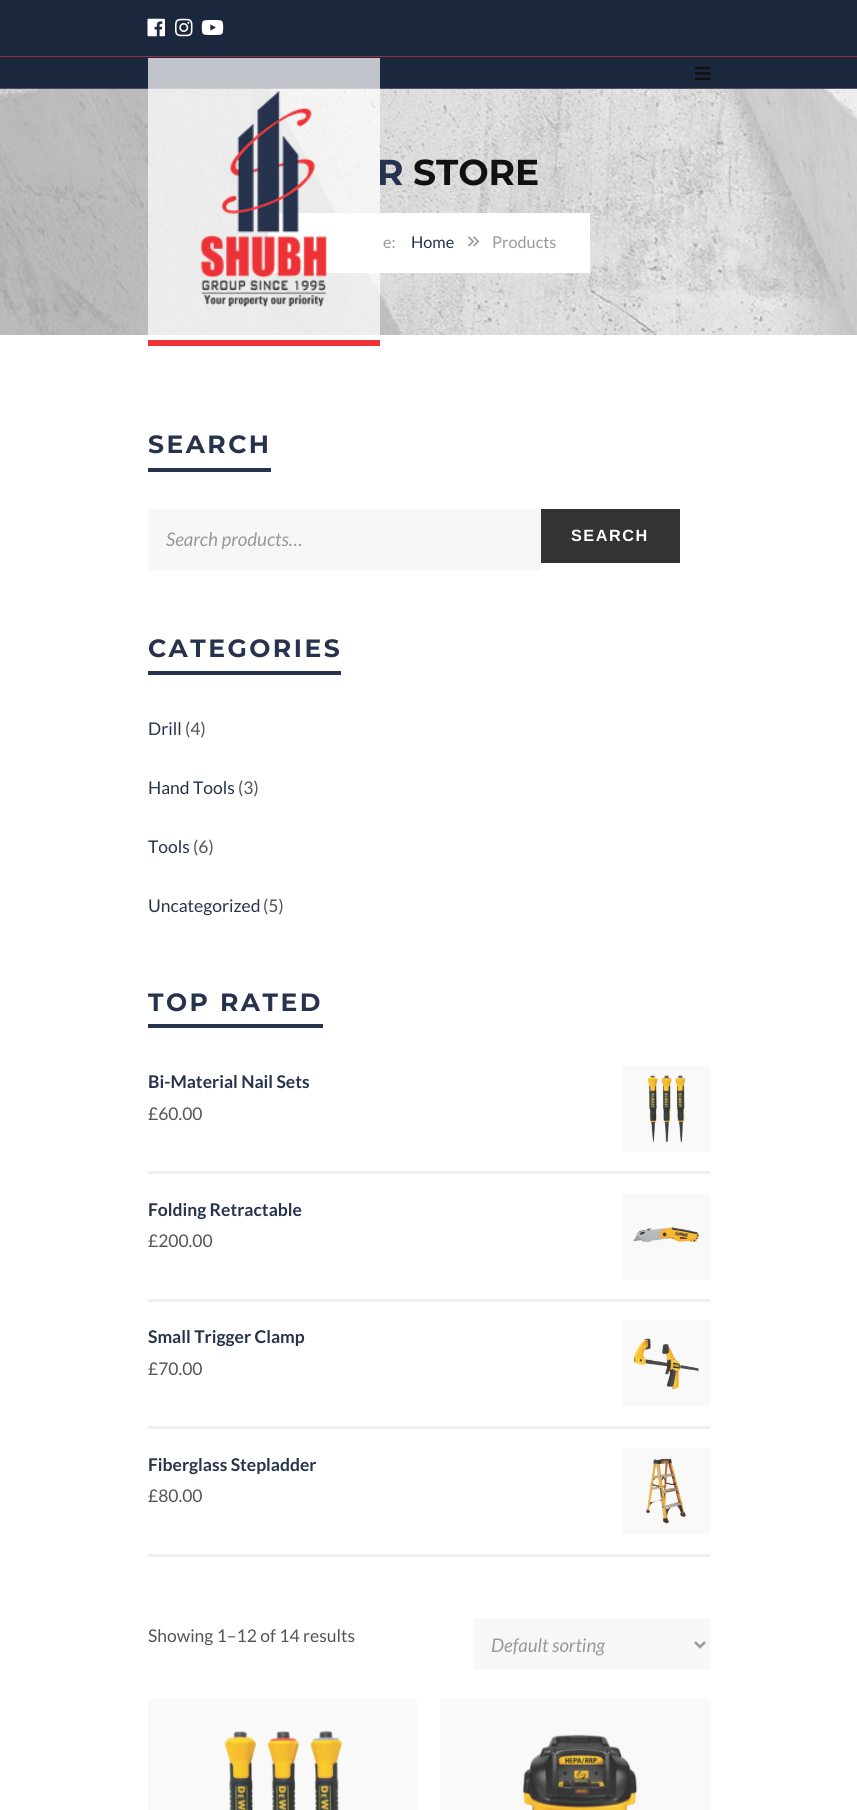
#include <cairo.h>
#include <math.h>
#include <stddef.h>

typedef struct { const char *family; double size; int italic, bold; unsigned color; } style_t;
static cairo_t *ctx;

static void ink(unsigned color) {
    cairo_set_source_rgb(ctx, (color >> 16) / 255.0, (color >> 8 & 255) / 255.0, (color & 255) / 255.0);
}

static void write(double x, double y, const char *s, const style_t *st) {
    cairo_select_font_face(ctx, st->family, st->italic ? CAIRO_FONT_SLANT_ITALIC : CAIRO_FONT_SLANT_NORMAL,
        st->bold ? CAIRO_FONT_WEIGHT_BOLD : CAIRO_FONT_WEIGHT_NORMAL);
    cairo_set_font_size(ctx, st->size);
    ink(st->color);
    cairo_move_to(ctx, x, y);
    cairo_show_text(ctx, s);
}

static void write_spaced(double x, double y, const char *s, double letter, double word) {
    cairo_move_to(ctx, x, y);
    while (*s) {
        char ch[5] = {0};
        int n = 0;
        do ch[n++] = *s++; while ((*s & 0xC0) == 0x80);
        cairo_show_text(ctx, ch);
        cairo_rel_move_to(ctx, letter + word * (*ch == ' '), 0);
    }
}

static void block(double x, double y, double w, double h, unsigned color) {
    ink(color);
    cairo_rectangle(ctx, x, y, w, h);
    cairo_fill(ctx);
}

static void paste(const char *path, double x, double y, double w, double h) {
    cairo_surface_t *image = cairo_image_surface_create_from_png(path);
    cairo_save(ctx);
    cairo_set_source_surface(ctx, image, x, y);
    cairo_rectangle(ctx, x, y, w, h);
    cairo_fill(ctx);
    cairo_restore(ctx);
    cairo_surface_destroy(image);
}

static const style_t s1 = {"Montserrat", 36, 0, 1, 0x27324d};
static const style_t s2 = {"Montserrat", 36, 0, 1, 0x111111};
static const style_t s3 = {"Lato", 16.25, 0, 0, 0x999999};
static const style_t s4 = {"Lato", 16.25, 0, 0, 0x27324d};
static const style_t s5 = {"Lato", 18.75, 1, 0, 0x999999};
static const style_t s6 = {"Lato", 17.5, 0, 0, 0x27324d};
static const style_t s7 = {"Lato", 17.5, 0, 0, 0x545454};
static const style_t s8 = {"Lato", 17.5, 0, 1, 0x27324d};

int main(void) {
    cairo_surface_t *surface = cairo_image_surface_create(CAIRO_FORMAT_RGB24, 857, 1810);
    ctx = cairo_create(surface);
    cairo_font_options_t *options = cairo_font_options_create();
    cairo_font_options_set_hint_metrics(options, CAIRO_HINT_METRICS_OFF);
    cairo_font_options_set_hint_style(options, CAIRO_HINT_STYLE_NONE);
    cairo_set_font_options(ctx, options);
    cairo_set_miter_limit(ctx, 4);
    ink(0xffffff);
    cairo_paint(ctx);
    block(0, 0, 857, 89, 0x1b273d);
    block(0, 56, 857, 1, 0x9b2e39);
    paste("pic1.png", 147, 18, 18, 19);
    paste("pic2.png", 175, 18, 18, 19);
    paste("pic3.png", 201, 20, 23, 15);
    paste("pic6.png", 0, 88, 857, 247);
    write(377, 185, "R", &s1);
    block(268, 213, 322, 60, 0xffffff);
    cairo_set_source_rgba(ctx, 1, 1, 1, 0.72);
    cairo_rectangle(ctx, 148, 58, 232, 277);
    cairo_fill(ctx);
    block(148, 340, 232, 6, 0xed3237);
    paste("pic4.png", 201, 91, 126, 216);
    paste("pic5.png", 695, 66, 16, 15);
    write(413, 185, "STORE", &s2);
    write(383, 248, "e:", &s3);
    write(411, 248, "Home", &s4);
    paste("pic7.png", 468, 236, 12, 11);
    write(492, 248, "Products", &s3);
    block(148, 468, 123, 4, 0x27324d);
    cairo_select_font_face(ctx, "Montserrat", CAIRO_FONT_SLANT_NORMAL, CAIRO_FONT_WEIGHT_BOLD);
    cairo_set_font_size(ctx, 25);
    write_spaced(148, 453, "SEARCH", 2.5, 0);
    block(148, 509, 393, 61, 0xf7f7f7);
    write(166, 546, "Search products…", &s5);
    block(541, 509, 139, 54, 0x333333);
    cairo_select_font_face(ctx, "Liberation Sans", CAIRO_FONT_SLANT_NORMAL, CAIRO_FONT_WEIGHT_BOLD);
    cairo_set_font_size(ctx, 16.25);
    ink(0xffffff);
    write_spaced(571, 541, "SEARCH", 1.5, 0);
    block(148, 671, 193, 4, 0x27324d);
    cairo_select_font_face(ctx, "Montserrat", CAIRO_FONT_SLANT_NORMAL, CAIRO_FONT_WEIGHT_BOLD);
    cairo_set_font_size(ctx, 25);
    write_spaced(148, 657, "CATEGORIES", 2.5, 0);
    write(148, 735, "Drill", &s6);
    write(185, 735, "(4)", &s7);
    write(148, 794, "Hand Tools", &s6);
    write(238, 794, "(3)", &s7);
    write(148, 853, "Tools", &s6);
    write(193, 853, "(6)", &s7);
    write(148, 912, "Uncategorized", &s6);
    write(263, 912, "(5)", &s7);
    block(148, 1024, 175, 4, 0x27324d);
    cairo_select_font_face(ctx, "Montserrat", CAIRO_FONT_SLANT_NORMAL, CAIRO_FONT_WEIGHT_BOLD);
    cairo_set_font_size(ctx, 25);
    write_spaced(148, 1011, "TOP RATED", 2.5, 0);
    block(148, 1171, 562, 3, 0xeeeeee);
    write(148, 1088, "Bi-Material Nail Sets", &s8);
    paste("pic8.png", 623, 1065, 87, 87);
    write(148, 1120, "£60.00", &s7);
    block(148, 1299, 562, 3, 0xeeeeee);
    write(148, 1216, "Folding Retractable", &s8);
    paste("pic9.png", 623, 1193, 87, 87);
    write(148, 1247, "£200.00", &s7);
    block(148, 1426, 562, 3, 0xeeeeee);
    write(148, 1343, "Small Trigger Clamp", &s8);
    paste("pic10.png", 623, 1320, 87, 87);
    write(148, 1375, "£70.00", &s7);
    block(148, 1554, 562, 3, 0xeeeeee);
    write(148, 1471, "Fiberglass Stepladder", &s8);
    paste("pic11.png", 623, 1448, 87, 87);
    write(148, 1502, "£80.00", &s7);
    write(148, 1642, "Showing 1–12 of 14 results", &s7);
    block(474, 1619, 236, 50, 0xf7f7f7);
    cairo_new_path(ctx);
    cairo_move_to(ctx, 695, 1642);
    cairo_line_to(ctx, 700, 1647);
    cairo_line_to(ctx, 705, 1642);
    ink(0x999999);
    cairo_set_line_width(ctx, 2.5);
    cairo_stroke(ctx);
    write(491, 1652, "Default sorting", &s5);
    paste("pic12.png", 148, 1699, 269, 111);
    paste("pic13.png", 440, 1699, 270, 111);
    cairo_surface_write_to_png(surface, "screenshot.png");
    cairo_font_options_destroy(options);
    cairo_destroy(ctx);
    cairo_surface_destroy(surface);
    return 0;
}
